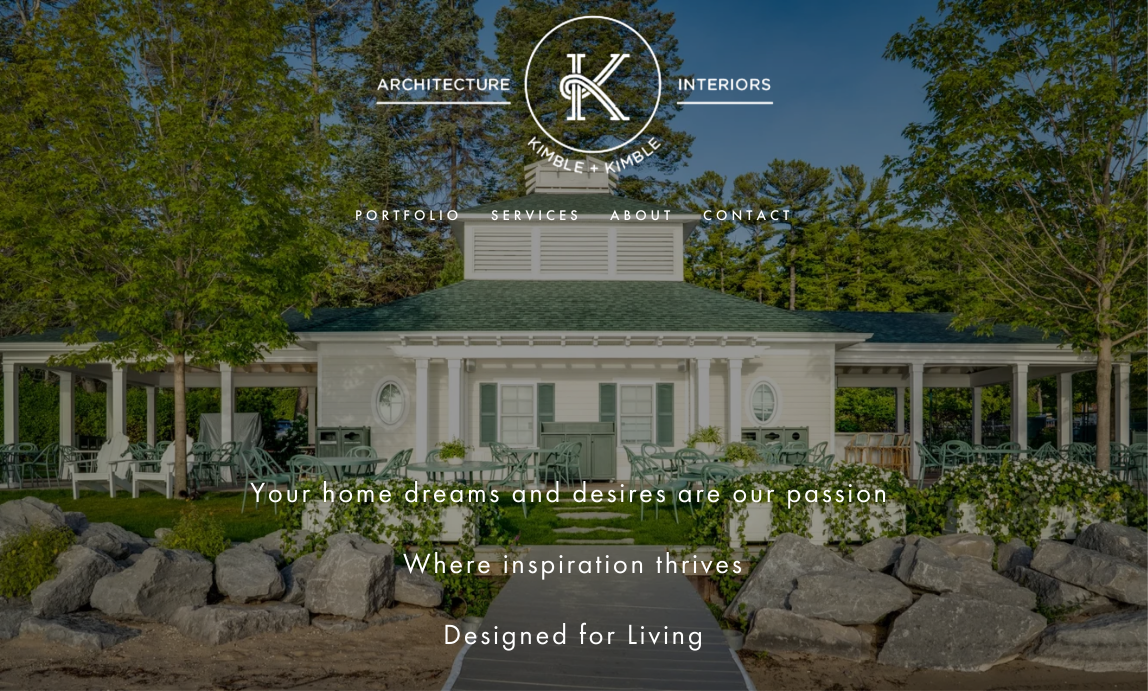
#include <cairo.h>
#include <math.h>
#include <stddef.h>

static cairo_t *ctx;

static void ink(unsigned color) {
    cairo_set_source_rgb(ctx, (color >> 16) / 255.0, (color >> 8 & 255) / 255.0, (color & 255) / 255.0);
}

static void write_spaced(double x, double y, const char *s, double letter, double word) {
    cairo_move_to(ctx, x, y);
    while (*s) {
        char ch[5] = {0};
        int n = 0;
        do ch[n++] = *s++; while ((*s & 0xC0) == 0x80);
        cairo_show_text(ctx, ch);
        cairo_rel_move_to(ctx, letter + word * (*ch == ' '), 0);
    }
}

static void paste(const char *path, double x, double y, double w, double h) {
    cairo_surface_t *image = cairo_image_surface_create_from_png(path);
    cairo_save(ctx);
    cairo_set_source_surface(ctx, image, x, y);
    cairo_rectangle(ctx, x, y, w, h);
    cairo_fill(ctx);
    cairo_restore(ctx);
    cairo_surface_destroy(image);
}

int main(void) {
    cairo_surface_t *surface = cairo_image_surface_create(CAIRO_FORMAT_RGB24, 1148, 691);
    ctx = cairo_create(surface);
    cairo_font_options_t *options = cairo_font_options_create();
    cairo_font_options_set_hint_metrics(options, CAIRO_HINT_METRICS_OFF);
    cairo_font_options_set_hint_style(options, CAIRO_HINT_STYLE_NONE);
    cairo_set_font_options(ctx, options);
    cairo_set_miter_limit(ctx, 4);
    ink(0xffffff);
    cairo_paint(ctx);
    paste("pic2.png", 0, 0, 1148, 691);
    paste("pic1.png", 376, 15, 398, 159);
    cairo_select_font_face(ctx, "Futura PT Medium", CAIRO_FONT_SLANT_NORMAL, CAIRO_FONT_WEIGHT_NORMAL);
    cairo_set_font_size(ctx, 14.5);
    ink(0xffffff);
    write_spaced(355, 220, "PORTFOLIO", 4, 0);
    write_spaced(491, 220, "SERVICES", 4, 0);
    write_spaced(610, 220, "ABOUT", 4, 0);
    write_spaced(703, 220, "CONTACT", 4, 0);
    cairo_select_font_face(ctx, "Futura PT", CAIRO_FONT_SLANT_NORMAL, CAIRO_FONT_WEIGHT_NORMAL);
    cairo_set_font_size(ctx, 28.8);
    write_spaced(250, 502, "Your home dreams and desires are our passion", 2.6, 0);
    write_spaced(403, 573, "Where inspiration thrives", 2.6, 0);
    write_spaced(443, 644, "Designed for Living", 2.6, 0);
    cairo_surface_write_to_png(surface, "screenshot.png");
    cairo_font_options_destroy(options);
    cairo_destroy(ctx);
    cairo_surface_destroy(surface);
    return 0;
}
